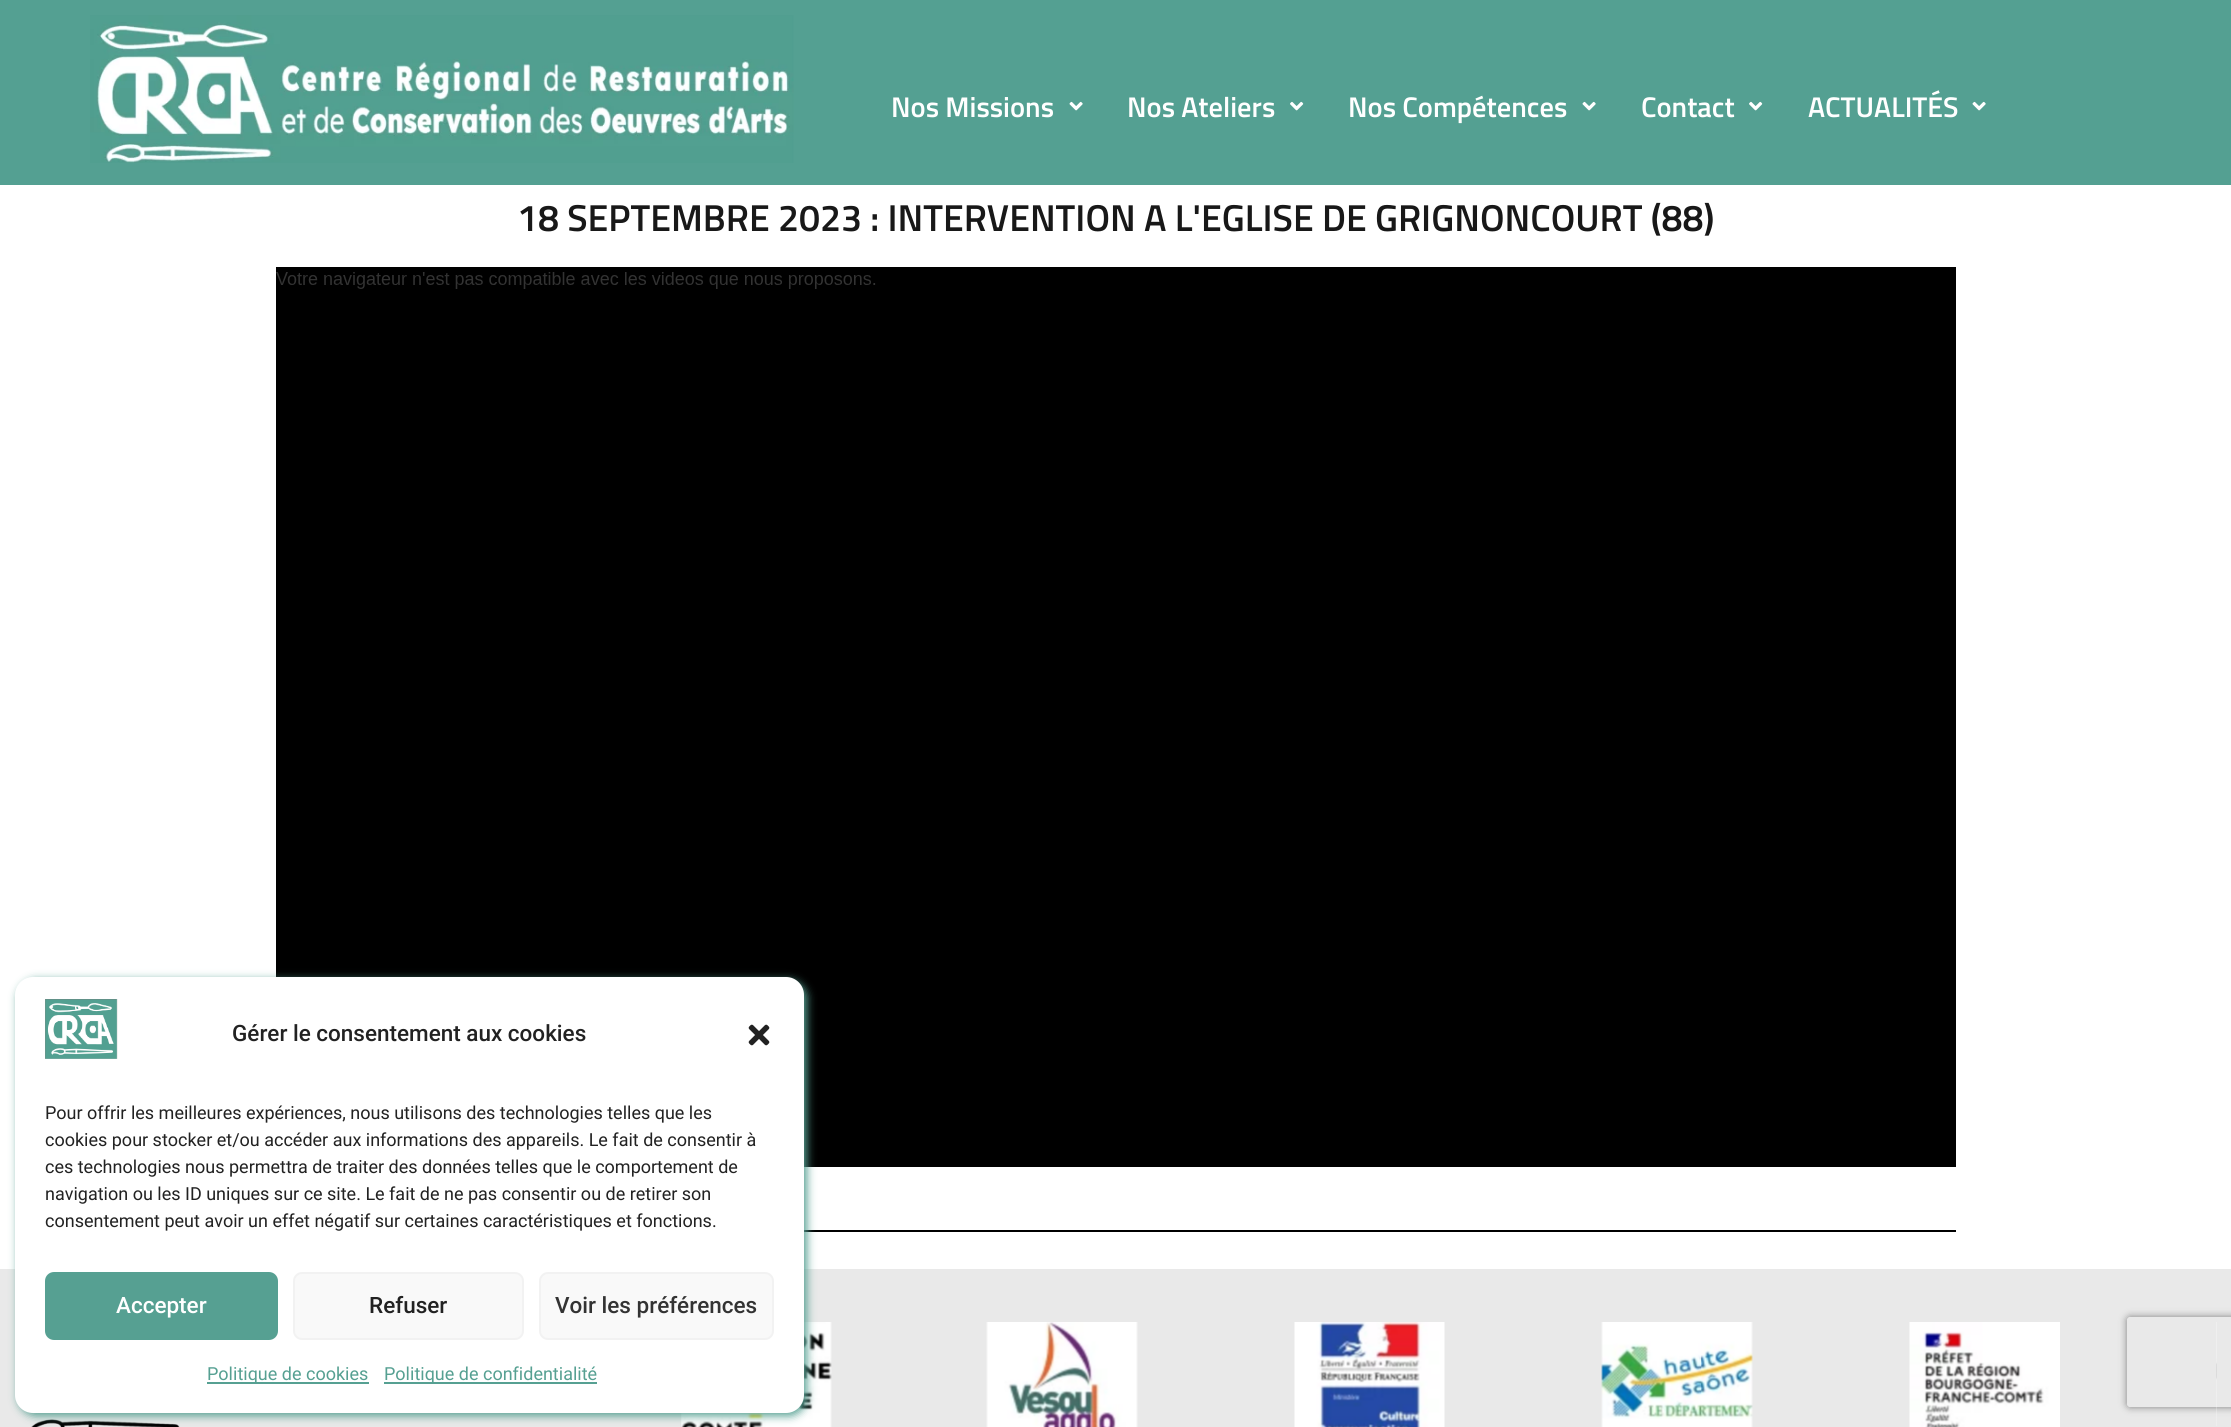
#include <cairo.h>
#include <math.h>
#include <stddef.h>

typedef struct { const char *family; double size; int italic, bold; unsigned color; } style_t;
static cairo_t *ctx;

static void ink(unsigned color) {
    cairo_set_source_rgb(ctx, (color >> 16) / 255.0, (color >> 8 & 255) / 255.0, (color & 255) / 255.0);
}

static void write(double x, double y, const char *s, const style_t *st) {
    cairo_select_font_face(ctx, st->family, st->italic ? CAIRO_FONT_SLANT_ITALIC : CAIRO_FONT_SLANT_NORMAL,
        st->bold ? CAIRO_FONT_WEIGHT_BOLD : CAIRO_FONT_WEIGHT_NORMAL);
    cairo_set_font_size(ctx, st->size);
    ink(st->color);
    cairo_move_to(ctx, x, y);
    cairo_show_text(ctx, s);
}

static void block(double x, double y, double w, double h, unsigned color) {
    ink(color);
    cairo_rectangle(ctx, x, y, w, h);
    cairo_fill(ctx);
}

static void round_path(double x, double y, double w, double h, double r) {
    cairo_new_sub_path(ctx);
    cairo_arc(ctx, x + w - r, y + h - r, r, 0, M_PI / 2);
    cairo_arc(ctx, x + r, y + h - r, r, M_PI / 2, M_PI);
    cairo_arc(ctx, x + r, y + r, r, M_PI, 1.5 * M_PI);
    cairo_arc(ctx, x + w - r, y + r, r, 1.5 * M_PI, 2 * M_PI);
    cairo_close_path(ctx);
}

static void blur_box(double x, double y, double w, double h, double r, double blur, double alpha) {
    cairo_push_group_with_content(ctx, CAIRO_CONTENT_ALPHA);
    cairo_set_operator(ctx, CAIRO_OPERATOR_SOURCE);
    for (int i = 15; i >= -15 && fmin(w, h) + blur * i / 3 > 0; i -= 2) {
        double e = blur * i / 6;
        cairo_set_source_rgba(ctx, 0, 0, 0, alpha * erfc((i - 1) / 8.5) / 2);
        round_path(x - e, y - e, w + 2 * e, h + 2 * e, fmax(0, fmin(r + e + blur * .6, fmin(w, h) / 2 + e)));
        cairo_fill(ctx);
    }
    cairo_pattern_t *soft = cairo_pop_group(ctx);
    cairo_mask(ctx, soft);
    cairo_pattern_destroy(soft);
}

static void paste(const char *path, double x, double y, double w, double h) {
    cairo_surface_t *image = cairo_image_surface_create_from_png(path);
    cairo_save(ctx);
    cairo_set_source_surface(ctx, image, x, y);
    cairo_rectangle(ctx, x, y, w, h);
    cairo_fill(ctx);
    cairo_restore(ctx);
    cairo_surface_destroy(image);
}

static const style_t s1 = {"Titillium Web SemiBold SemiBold", 28.5, 0, 0, 0xffffff};
static const style_t s2 = {"Titillium Web SemiBold SemiBold", 37.5, 0, 0, 0x181818};
static const style_t s3 = {"Roboto Medium", 22.5, 0, 0, 0x222222};
static const style_t s4 = {"Roboto", 18, 0, 0, 0x222222};
static const style_t s5 = {"Roboto Medium", 22.5, 0, 0, 0xffffff};
static const style_t s6 = {"Roboto Medium", 22.5, 0, 0, 0x333333};
static const style_t s7 = {"Roboto", 18, 0, 0, 0x56a092};

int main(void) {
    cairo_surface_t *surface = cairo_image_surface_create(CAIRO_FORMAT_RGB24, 2231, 1427);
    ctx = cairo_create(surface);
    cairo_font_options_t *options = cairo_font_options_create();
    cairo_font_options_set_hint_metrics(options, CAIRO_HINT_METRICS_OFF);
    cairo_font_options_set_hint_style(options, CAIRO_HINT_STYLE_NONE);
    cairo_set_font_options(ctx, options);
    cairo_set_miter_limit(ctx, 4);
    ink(0xffffff);
    cairo_paint(ctx);
    block(0, 0, 2231, 185, 0x54a092);
    paste("pic1.png", 90, 15, 704, 148);
    write(891, 117, "Nos Missions", &s1);
    paste("pic2.png", 1069, 101, 14, 10);
    write(1127, 117, "Nos Ateliers", &s1);
    paste("pic3.png", 1290, 101, 14, 10);
    write(1348, 117, "Nos Compétences", &s1);
    paste("pic2.png", 1582, 101, 14, 10);
    write(1641, 117, "Contact", &s1);
    paste("pic3.png", 1749, 101, 14, 10);
    write(1808, 117, "ACTUALITÉS", &s1);
    paste("pic2.png", 1972, 101, 14, 10);
    write(517, 231, "18 SEPTEMBRE 2023 : INTERVENTION A L'EGLISE DE GRIGNONCOURT (88)", &s2);
    paste("pic4.png", 276, 267, 1680, 900);
    block(804, 1230, 1152, 2, 0x000000);
    block(0, 1269, 2231, 158, 0xe9e9e9);
    paste("pic7.png", 31, 1419, 149, 8);
    paste("pic8.png", 681, 1322, 151, 105);
    ink(0x56a092);
    blur_box(18, 980, 789, 436, 18, 4.5, 1);
    ink(0xffffff);
    round_path(15, 977, 789, 436, 18);
    cairo_fill(ctx);
    paste("pic5.png", 45, 999, 73, 60);
    write(232, 1041, "Gérer le consentement aux cookies", &s3);
    paste("pic6.png", 748, 1024, 22, 22);
    write(45, 1119, "Pour offrir les meilleures expériences, nous utilisons des technologies telles que les", &s4);
    write(45, 1146, "cookies pour stocker et/ou accéder aux informations des appareils. Le fait de consentir à", &s4);
    write(45, 1173, "ces technologies nous permettra de traiter des données telles que le comportement de", &s4);
    write(45, 1200, "navigation ou les ID uniques sur ce site. Le fait de ne pas consentir ou de retirer son", &s4);
    write(45, 1227, "consentement peut avoir un effet négatif sur certaines caractéristiques et fonctions.", &s4);
    ink(0x56a092);
    round_path(46, 1273, 231, 66, 8);
    cairo_fill_preserve(ctx);
    cairo_stroke(ctx);
    write(116, 1313, "Accepter", &s5);
    ink(0xf9f9f9);
    round_path(294, 1273, 229, 66, 8);
    cairo_fill_preserve(ctx);
    ink(0xf2f2f2);
    cairo_stroke(ctx);
    write(369, 1313, "Refuser", &s3);
    ink(0xf9f9f9);
    round_path(540, 1273, 233, 66, 8);
    cairo_fill_preserve(ctx);
    ink(0xf2f2f2);
    cairo_stroke(ctx);
    write(555, 1313, "Voir les préférences", &s6);
    block(207, 1382, 162, 2, 0x56a092);
    write(207, 1380, "Politique de cookies", &s7);
    block(384, 1382, 213, 2, 0x56a092);
    write(384, 1380, "Politique de confidentialité", &s7);
    paste("pic9.png", 986, 1322, 152, 105);
    paste("pic10.png", 1294, 1322, 151, 105);
    paste("pic11.png", 1601, 1322, 152, 105);
    paste("pic12.png", 1909, 1322, 151, 105);
    cairo_save(ctx);
    cairo_set_fill_rule(ctx, CAIRO_FILL_RULE_EVEN_ODD);
    cairo_new_path(ctx);
    cairo_move_to(ctx, 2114, 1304);
    cairo_line_to(ctx, 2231, 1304);
    cairo_line_to(ctx, 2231, 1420);
    cairo_line_to(ctx, 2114, 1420);
    cairo_close_path(ctx);
    cairo_move_to(ctx, 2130, 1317);
    cairo_line_to(ctx, 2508, 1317);
    cairo_curve_to(ctx, 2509.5, 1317, 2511, 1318.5, 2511, 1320);
    cairo_line_to(ctx, 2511, 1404);
    cairo_curve_to(ctx, 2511, 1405.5, 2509.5, 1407, 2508, 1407);
    cairo_line_to(ctx, 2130, 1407);
    cairo_curve_to(ctx, 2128.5, 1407, 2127, 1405.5, 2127, 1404);
    cairo_line_to(ctx, 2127, 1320);
    cairo_curve_to(ctx, 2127, 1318.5, 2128.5, 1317, 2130, 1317);
    cairo_close_path(ctx);
    cairo_clip(ctx);
    ink(0x808080);
    blur_box(2127, 1317, 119, 90, 3, 4, 1);
    cairo_restore(ctx);
    paste("pic13.png", 2216, 1322, 1, 104);
    cairo_surface_write_to_png(surface, "screenshot.png");
    cairo_font_options_destroy(options);
    cairo_destroy(ctx);
    cairo_surface_destroy(surface);
    return 0;
}
